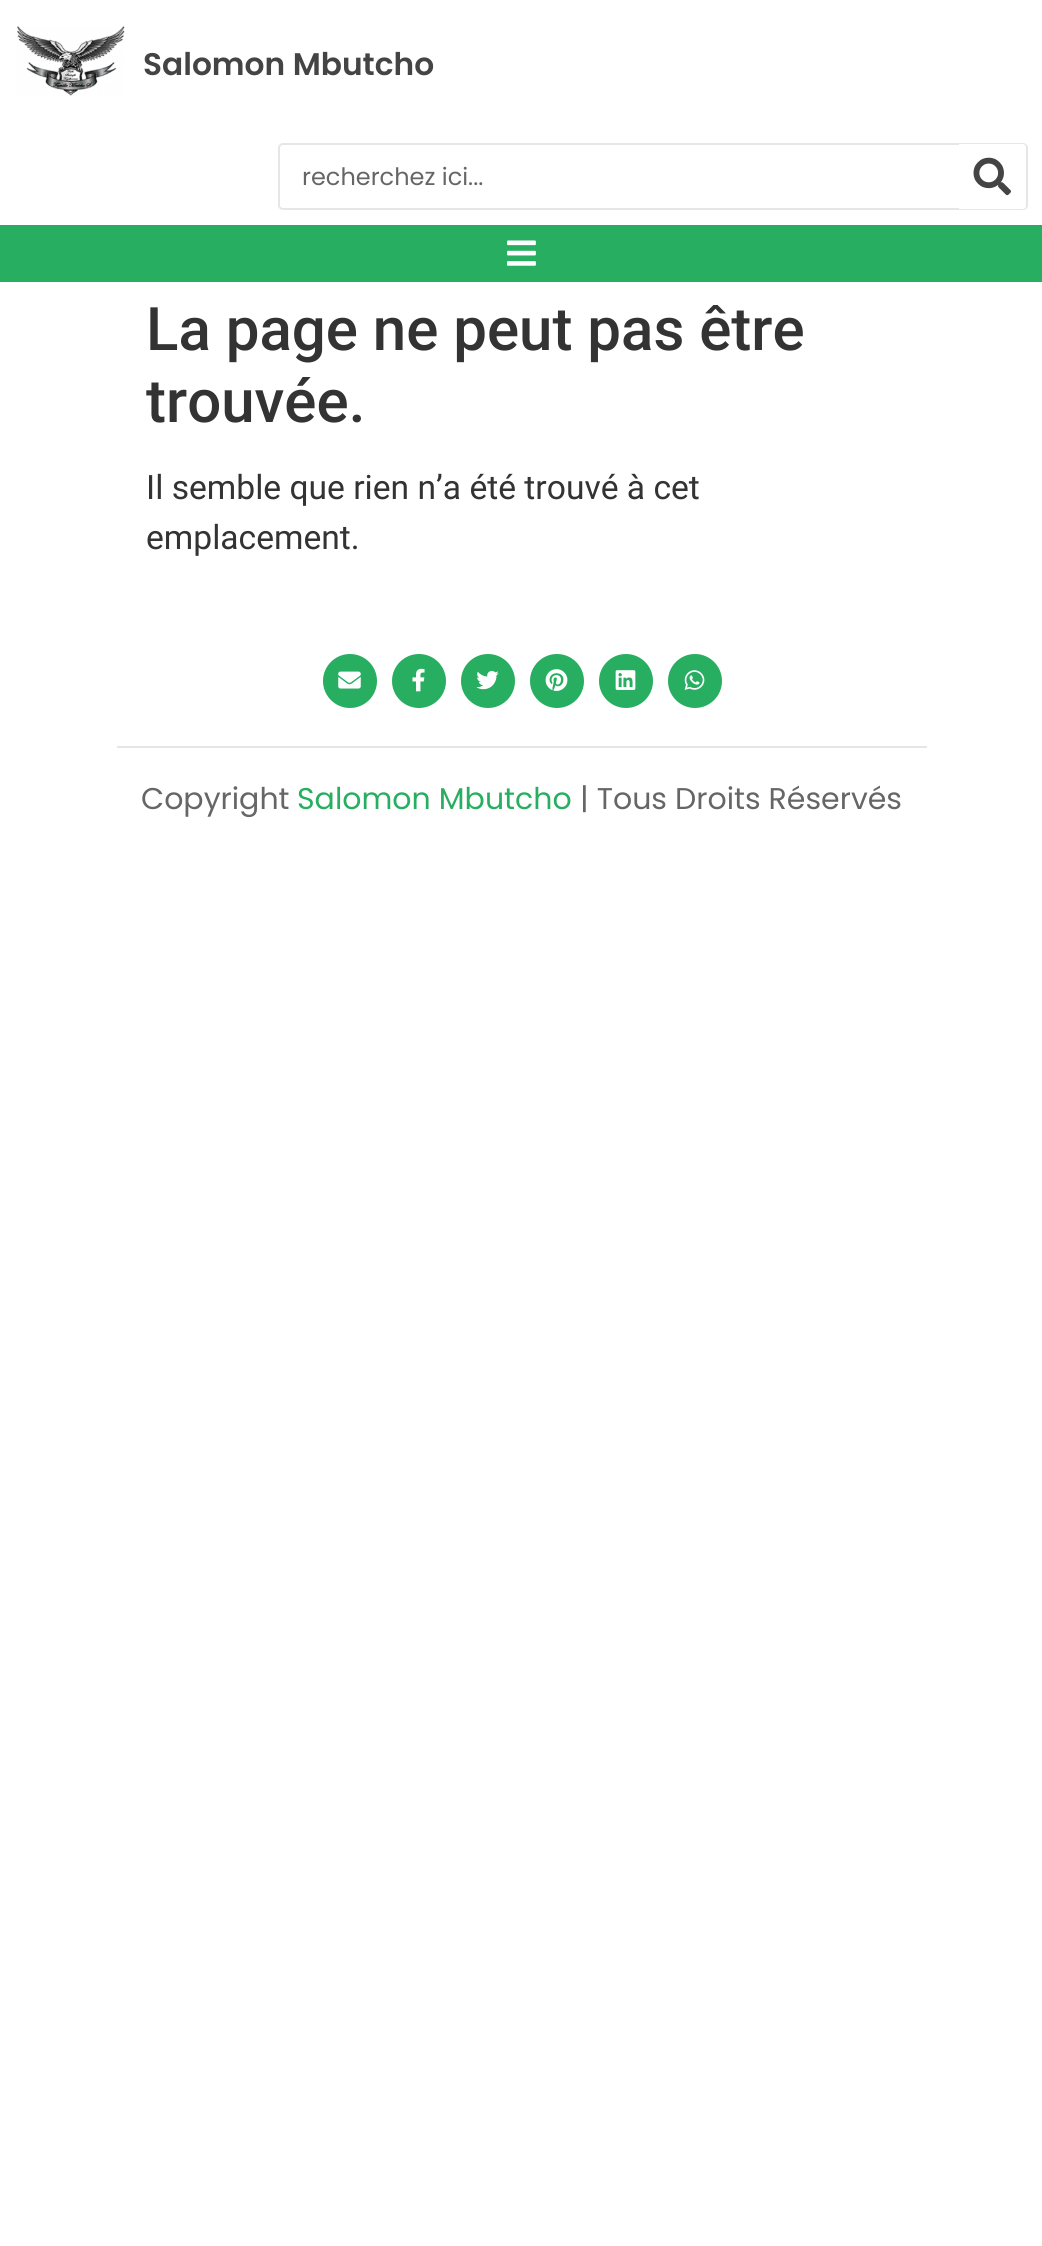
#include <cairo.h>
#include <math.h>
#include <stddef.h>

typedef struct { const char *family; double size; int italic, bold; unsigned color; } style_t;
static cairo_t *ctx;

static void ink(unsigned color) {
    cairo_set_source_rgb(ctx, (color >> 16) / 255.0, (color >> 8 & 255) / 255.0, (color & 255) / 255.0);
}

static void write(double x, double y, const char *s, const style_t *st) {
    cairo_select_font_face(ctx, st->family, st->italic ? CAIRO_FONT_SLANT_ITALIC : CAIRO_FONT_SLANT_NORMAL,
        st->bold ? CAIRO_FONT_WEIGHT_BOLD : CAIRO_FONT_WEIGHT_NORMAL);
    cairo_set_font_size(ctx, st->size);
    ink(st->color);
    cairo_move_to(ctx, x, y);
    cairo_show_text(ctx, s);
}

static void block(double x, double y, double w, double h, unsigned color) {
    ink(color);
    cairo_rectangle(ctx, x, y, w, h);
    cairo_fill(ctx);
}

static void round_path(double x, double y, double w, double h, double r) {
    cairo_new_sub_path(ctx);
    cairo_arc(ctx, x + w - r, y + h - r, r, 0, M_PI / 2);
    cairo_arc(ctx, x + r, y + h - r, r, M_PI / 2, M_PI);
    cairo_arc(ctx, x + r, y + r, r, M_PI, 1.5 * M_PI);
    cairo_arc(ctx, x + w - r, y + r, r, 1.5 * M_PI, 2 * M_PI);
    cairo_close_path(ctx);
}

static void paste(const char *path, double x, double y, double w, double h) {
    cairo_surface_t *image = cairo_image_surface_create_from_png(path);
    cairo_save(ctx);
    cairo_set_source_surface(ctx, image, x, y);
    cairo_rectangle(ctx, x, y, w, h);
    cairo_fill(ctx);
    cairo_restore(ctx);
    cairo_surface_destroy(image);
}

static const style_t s1 = {"Poppins SemiBold", 31.25, 0, 0, 0x444444};
static const style_t s2 = {"Poppins", 24, 0, 0, 0x666666};
static const style_t s3 = {"Roboto Medium", 60, 0, 0, 0x333333};
static const style_t s4 = {"Roboto", 33.6, 0, 0, 0x333333};
static const style_t s5 = {"Poppins", 30, 0, 0, 0x666666};
static const style_t s6 = {"Poppins", 30, 0, 0, 0x27ae60};

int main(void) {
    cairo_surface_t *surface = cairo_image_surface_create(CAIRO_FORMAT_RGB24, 1042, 2246);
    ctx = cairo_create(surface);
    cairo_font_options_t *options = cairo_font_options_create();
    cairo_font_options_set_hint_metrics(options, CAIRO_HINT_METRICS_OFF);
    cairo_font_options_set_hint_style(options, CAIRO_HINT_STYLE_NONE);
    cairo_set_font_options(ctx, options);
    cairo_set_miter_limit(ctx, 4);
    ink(0xffffff);
    cairo_paint(ctx);
    paste("pic1.png", 17, 26, 108, 70);
    write(143, 75, "Salomon Mbutcho", &s1);
    round_path(279, 144, 748, 65, 4);
    ink(0xe6e6e6);
    cairo_stroke(ctx);
    write(302, 185, "recherchez ici...", &s2);
    ink(0xffffff);
    cairo_new_path(ctx);
    cairo_move_to(ctx, 959, 144);
    cairo_line_to(ctx, 1023, 144);
    cairo_curve_to(ctx, 1024.5, 144, 1026, 145.5, 1026, 147);
    cairo_line_to(ctx, 1026, 206);
    cairo_curve_to(ctx, 1026, 207.5, 1024.5, 209, 1023, 209);
    cairo_line_to(ctx, 959, 209);
    cairo_close_path(ctx);
    cairo_fill(ctx);
    paste("pic2.png", 973, 157, 38, 39);
    block(0, 225, 1042, 57, 0x27ae60);
    paste("pic3.png", 507, 240, 29, 26);
    write(146, 350, "La page ne peut pas être", &s3);
    write(146, 422, "trouvée.", &s3);
    write(146, 499, "Il semble que rien n’a été trouvé à cet", &s4);
    write(146, 549, "emplacement.", &s4);
    ink(0x27ae60);
    cairo_new_path(ctx);
    cairo_arc(ctx, 350, 681, 27, 0, 2 * M_PI);
    cairo_fill(ctx);
    paste("pic4.png", 338, 671, 23, 18);
    cairo_arc(ctx, 419, 681, 27, 0, 2 * M_PI);
    cairo_fill(ctx);
    paste("pic5.png", 412, 668, 13, 24);
    cairo_arc(ctx, 488, 681, 27, 0, 2 * M_PI);
    cairo_fill(ctx);
    paste("pic6.png", 476, 670, 23, 20);
    cairo_arc(ctx, 557, 681, 27, 0, 2 * M_PI);
    cairo_fill(ctx);
    paste("pic7.png", 545, 669, 23, 22);
    cairo_arc(ctx, 626, 681, 27, 0, 2 * M_PI);
    cairo_fill(ctx);
    paste("pic8.png", 615, 670, 21, 20);
    cairo_arc(ctx, 695, 681, 27, 0, 2 * M_PI);
    cairo_fill(ctx);
    paste("pic9.png", 684, 670, 21, 20);
    block(117, 746, 810, 2, 0xe6e6e6);
    write(141, 809, "Copyright", &s5);
    write(297, 809, "Salomon Mbutcho", &s6);
    write(580, 809, "| Tous Droits Réservés", &s5);
    cairo_surface_write_to_png(surface, "screenshot.png");
    cairo_font_options_destroy(options);
    cairo_destroy(ctx);
    cairo_surface_destroy(surface);
    return 0;
}
